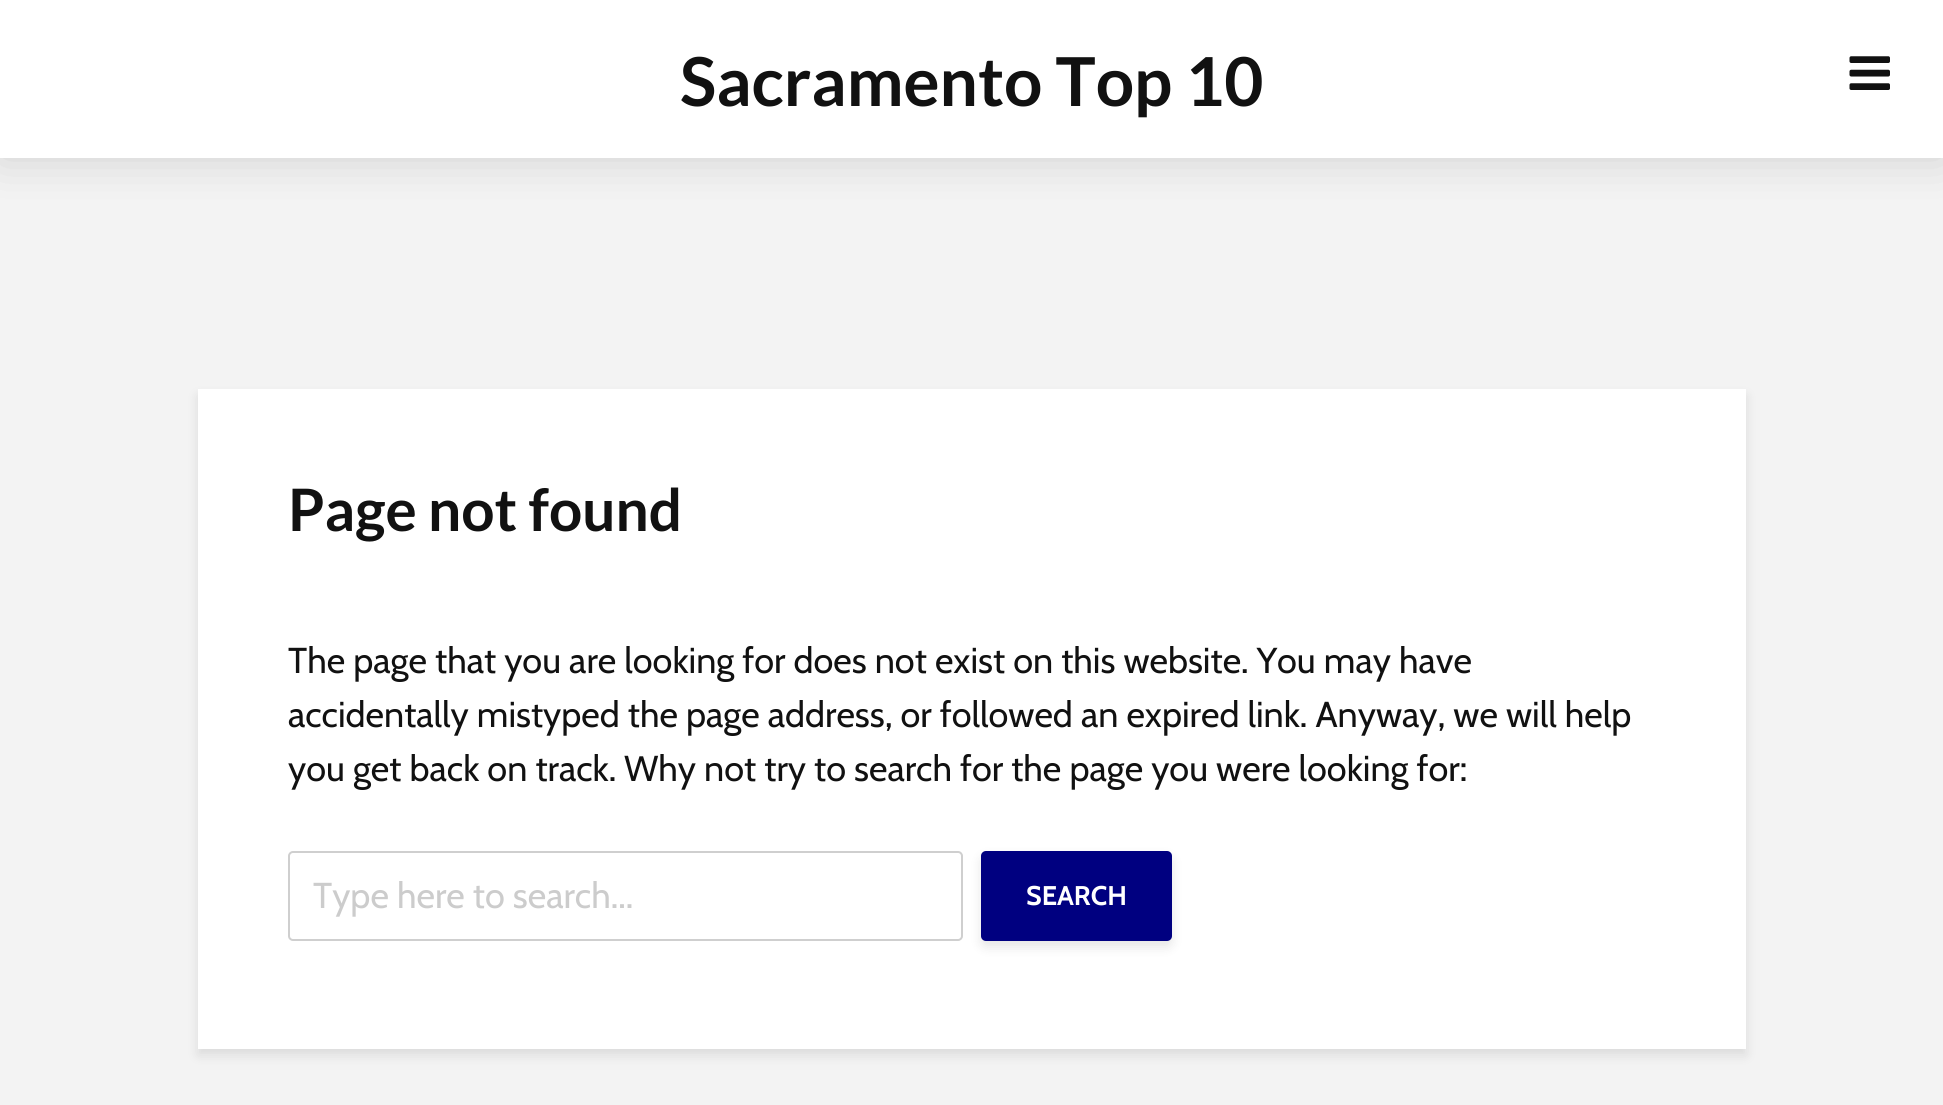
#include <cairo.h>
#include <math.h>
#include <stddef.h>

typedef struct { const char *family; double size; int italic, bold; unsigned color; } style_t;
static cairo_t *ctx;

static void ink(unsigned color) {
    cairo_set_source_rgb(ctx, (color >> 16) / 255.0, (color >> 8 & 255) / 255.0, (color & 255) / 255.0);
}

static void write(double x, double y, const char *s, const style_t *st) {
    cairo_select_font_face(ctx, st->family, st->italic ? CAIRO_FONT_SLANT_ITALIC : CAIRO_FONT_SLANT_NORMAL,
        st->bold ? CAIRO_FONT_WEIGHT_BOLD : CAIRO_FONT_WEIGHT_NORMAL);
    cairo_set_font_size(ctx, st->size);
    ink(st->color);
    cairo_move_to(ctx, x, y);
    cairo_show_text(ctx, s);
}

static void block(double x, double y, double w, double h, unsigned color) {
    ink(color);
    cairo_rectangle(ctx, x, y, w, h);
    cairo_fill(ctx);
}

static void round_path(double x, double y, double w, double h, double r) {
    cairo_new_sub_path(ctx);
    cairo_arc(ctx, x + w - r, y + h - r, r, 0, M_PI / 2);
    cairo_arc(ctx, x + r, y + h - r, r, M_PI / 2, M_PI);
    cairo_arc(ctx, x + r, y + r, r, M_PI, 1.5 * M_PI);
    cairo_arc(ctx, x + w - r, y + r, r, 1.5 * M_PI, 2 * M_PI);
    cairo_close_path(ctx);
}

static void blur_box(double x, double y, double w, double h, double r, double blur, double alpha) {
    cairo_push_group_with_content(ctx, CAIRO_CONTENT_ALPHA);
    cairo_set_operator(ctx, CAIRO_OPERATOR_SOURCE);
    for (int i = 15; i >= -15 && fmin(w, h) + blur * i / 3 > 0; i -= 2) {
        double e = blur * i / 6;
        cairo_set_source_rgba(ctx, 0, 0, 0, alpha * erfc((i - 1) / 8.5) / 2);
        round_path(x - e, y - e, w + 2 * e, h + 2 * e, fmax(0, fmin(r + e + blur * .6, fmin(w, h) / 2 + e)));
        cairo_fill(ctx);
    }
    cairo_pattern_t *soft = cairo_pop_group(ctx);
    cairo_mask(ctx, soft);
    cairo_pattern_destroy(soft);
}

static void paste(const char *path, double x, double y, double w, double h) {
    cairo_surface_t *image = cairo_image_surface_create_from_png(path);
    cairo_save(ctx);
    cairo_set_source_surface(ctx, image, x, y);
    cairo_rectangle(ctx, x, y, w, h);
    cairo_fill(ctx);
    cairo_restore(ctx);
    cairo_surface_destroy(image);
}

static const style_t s1 = {"Lato", 67.5, 0, 1, 0x111111};
static const style_t s2 = {"Lato", 58.5, 0, 1, 0x111111};
static const style_t s3 = {"Cabin", 36, 0, 0, 0x111111};
static const style_t s4 = {"Cabin", 36, 0, 0, 0xcccccc};
static const style_t s5 = {"Cabin", 27, 0, 1, 0xffffff};

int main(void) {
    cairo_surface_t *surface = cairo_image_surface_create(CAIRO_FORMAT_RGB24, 1943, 1105);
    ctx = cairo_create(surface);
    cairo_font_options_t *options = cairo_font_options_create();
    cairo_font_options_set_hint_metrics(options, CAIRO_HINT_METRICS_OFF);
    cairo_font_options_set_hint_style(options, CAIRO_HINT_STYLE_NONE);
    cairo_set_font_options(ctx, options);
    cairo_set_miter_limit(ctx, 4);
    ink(0xf3f3f3);
    cairo_paint(ctx);
    ink(0x000000);
    blur_box(0, 0, 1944, 158, 0, 22.5, 0.15);
    block(0, 0, 1943, 158, 0xffffff);
    write(680, 106, "Sacramento Top 10", &s1);
    paste("pic1.png", 1849, 56, 41, 34);
    ink(0x000101);
    blur_box(198, 396, 1548, 659, 0, 5.5, 0.1);
    block(198, 389, 1548, 660, 0xffffff);
    write(288, 531, "Page not found", &s2);
    write(288, 673, "The page that you are looking for does not exist on this website. You may have", &s3);
    write(288, 727, "accidentally mistyped the page address, or followed an expired link. Anyway, we will help", &s3);
    write(288, 781, "you get back on track. Why not try to search for the page you were looking for:", &s3);
    round_path(289, 852, 673, 88, 4);
    ink(0xcfcfcf);
    cairo_stroke(ctx);
    write(313, 908, "Type here to search...", &s4);
    ink(0x000000);
    blur_box(981, 857, 191, 90, 5, 5.5, 0.1);
    ink(0x000080);
    round_path(981, 851, 191, 90, 5);
    cairo_fill(ctx);
    write(1026, 905, "SEARCH", &s5);
    cairo_surface_write_to_png(surface, "screenshot.png");
    cairo_font_options_destroy(options);
    cairo_destroy(ctx);
    cairo_surface_destroy(surface);
    return 0;
}
